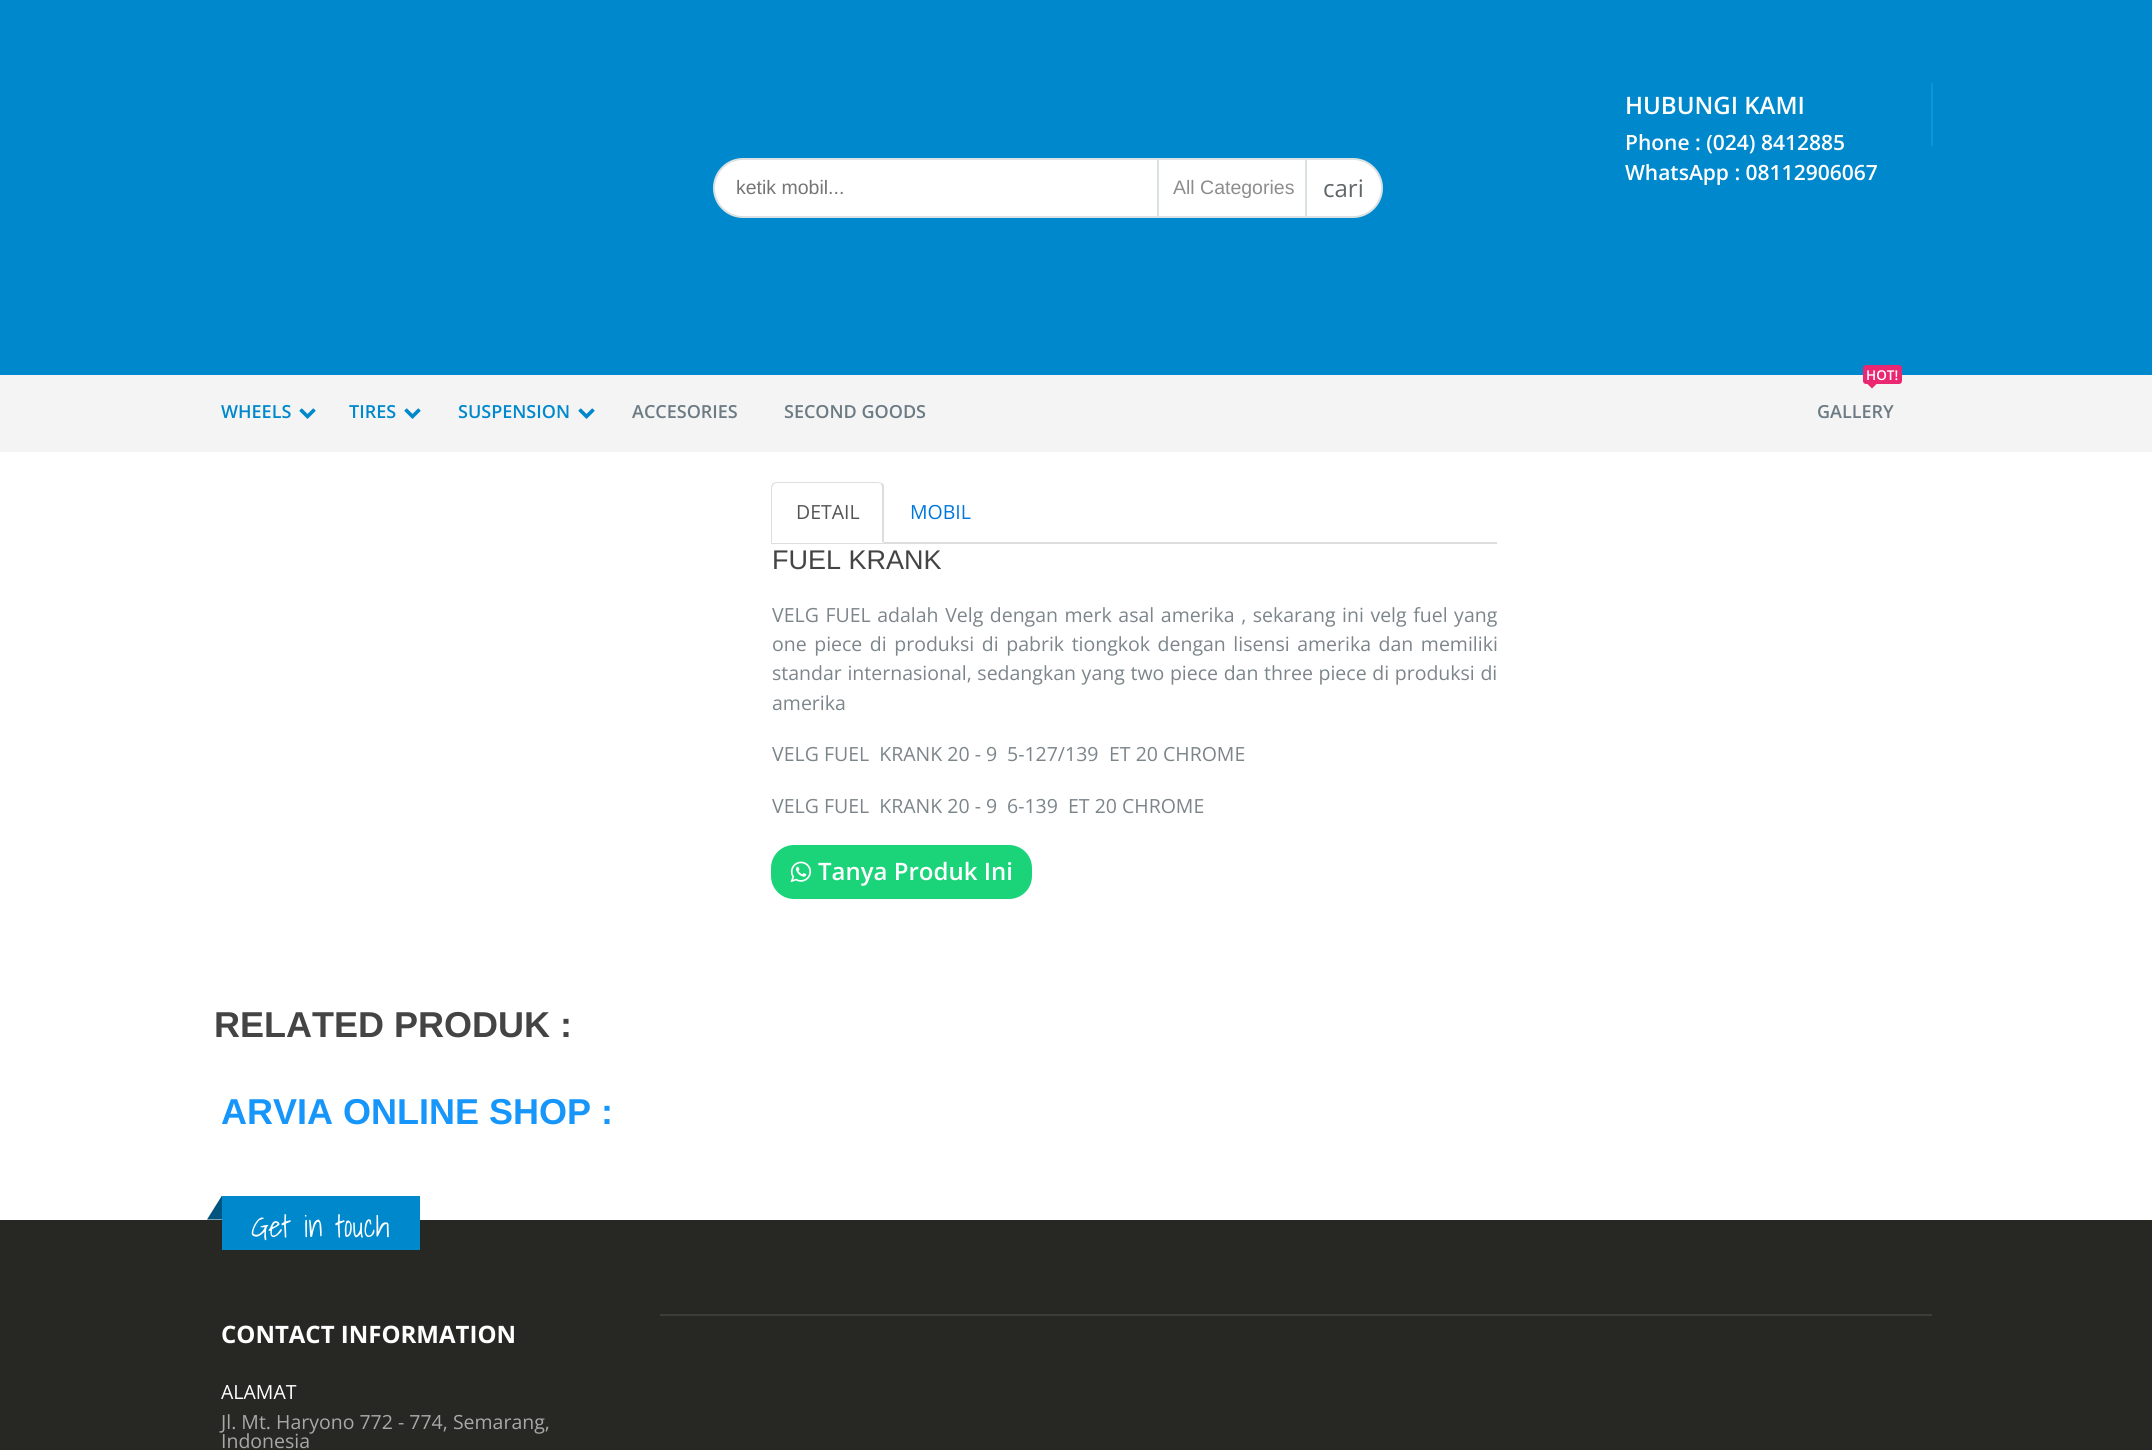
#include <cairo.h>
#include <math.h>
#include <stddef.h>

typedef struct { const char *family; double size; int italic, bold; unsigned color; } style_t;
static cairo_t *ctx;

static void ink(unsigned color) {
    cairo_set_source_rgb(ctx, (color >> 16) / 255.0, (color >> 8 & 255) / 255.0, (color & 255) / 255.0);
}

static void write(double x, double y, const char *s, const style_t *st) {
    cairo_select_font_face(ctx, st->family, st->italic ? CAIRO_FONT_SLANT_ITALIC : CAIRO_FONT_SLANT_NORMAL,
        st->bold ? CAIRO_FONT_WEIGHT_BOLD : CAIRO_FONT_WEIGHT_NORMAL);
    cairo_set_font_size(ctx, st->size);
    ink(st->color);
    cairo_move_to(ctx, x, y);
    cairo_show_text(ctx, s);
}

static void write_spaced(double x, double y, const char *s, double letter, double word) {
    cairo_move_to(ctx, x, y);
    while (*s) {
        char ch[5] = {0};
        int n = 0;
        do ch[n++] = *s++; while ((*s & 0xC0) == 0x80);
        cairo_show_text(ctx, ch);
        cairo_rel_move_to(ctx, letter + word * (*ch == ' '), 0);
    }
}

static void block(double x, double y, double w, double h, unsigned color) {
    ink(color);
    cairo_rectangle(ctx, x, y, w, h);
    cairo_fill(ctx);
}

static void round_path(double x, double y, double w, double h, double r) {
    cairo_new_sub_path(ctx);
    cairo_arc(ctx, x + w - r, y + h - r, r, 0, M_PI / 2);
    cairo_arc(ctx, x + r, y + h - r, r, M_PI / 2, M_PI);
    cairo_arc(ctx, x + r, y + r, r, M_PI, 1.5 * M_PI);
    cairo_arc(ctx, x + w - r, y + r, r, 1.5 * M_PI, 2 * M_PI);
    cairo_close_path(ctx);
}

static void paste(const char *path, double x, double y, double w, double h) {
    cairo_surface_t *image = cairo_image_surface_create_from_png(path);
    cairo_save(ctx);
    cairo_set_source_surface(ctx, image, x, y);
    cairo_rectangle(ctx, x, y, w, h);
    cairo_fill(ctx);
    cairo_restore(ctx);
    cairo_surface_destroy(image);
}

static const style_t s1 = {"Open Sans SemiBold", 24, 0, 0, 0xffffff};
static const style_t s2 = {"Open Sans SemiBold", 21, 0, 0, 0xffffff};
static const style_t s3 = {"Liberation Sans", 19.5, 0, 0, 0x757575};
static const style_t s4 = {"Liberation Sans", 19.5, 0, 0, 0x8d8d8d};
static const style_t s5 = {"Open Sans", 24, 0, 0, 0x606669};
static const style_t s6 = {"Open Sans SemiBold", 18, 0, 0, 0x0088cc};
static const style_t s7 = {"Open Sans SemiBold", 18, 0, 0, 0x6b7a83};
static const style_t s8 = {"Open Sans SemiBold", 13.5, 0, 0, 0xffffff};
static const style_t s9 = {"Open Sans", 19.5, 0, 0, 0x555555};
static const style_t s10 = {"Open Sans", 19.5, 0, 0, 0x0077dd};
static const style_t s11 = {"Liberation Sans", 27, 0, 0, 0x444444};
static const style_t s12 = {"Open Sans", 19.5, 0, 0, 0x7b858a};
static const style_t s13 = {"Liberation Sans", 36, 0, 1, 0x444444};
static const style_t s14 = {"Liberation Sans", 36, 0, 1, 0x1696fb};
static const style_t s15 = {"Shadows Into Light Light", 30, 0, 0, 0xffffff};
static const style_t s16 = {"Open Sans", 24, 0, 1, 0xffffff};
static const style_t s17 = {"Open Sans", 19.5, 0, 0, 0xffffff};
static const style_t s18 = {"Open Sans", 19.5, 0, 0, 0xa8a8a8};

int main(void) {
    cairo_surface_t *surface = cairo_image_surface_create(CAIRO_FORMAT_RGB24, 2152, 1450);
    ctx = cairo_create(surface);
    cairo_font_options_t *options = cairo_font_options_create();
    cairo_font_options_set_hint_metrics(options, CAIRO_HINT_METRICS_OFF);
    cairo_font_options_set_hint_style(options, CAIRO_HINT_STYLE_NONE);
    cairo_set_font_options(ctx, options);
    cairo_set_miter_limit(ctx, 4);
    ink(0xffffff);
    cairo_paint(ctx);
    block(0, 0, 2152, 375, 0x0088cc);
    block(1931, 83, 2, 63, 0x0e95d9);
    write(1625, 114, "HUBUNGI KAMI", &s1);
    write(1625, 150, "Phone : (024) 8412885", &s2);
    write(1625, 180, "WhatsApp : 08112906067", &s2);
    round_path(714, 159, 668, 58, 29);
    cairo_fill_preserve(ctx);
    ink(0xdbe0e2);
    cairo_stroke(ctx);
    write(736, 194, "ketik mobil...", &s3);
    block(1305, 159, 2, 57, 0xdbe0e2);
    block(1157, 159, 2, 57, 0xdbe0e2);
    write(1173, 194, "All Categories", &s4);
    write(1323, 197, "cari", &s5);
    block(0, 375, 2152, 77, 0xf4f4f4);
    write(221, 418, "WHEELS", &s6);
    paste("pic1.png", 299, 408, 17, 11);
    write(349, 418, "TIRES", &s6);
    paste("pic1.png", 404, 408, 17, 11);
    write(458, 418, "SUSPENSION", &s6);
    paste("pic1.png", 578, 408, 17, 11);
    write(632, 418, "ACCESORIES", &s7);
    write(784, 418, "SECOND GOODS", &s7);
    ink(0xeb2771);
    round_path(1863, 365, 39, 19, 3);
    cairo_fill(ctx);
    write(1866, 380, "HOT!", &s8);
    ink(0xeb2771);
    cairo_new_path(ctx);
    cairo_move_to(ctx, 1867.5, 384);
    cairo_line_to(ctx, 1876.5, 384);
    cairo_line_to(ctx, 1872, 388.5);
    cairo_close_path(ctx);
    cairo_fill(ctx);
    write(1817, 418, "GALLERY", &s7);
    block(771, 542, 726, 2, 0xdddddd);
    ink(0xffffff);
    cairo_new_path(ctx);
    cairo_move_to(ctx, 777, 482);
    cairo_line_to(ctx, 878, 482);
    cairo_curve_to(ctx, 881.5, 482, 884, 484.5, 884, 488);
    cairo_line_to(ctx, 884, 543);
    cairo_line_to(ctx, 771, 543);
    cairo_line_to(ctx, 771, 488);
    cairo_curve_to(ctx, 771, 484.5, 773.5, 482, 777, 482);
    cairo_close_path(ctx);
    cairo_fill(ctx);
    ink(0xdddddd);
    cairo_new_path(ctx);
    cairo_move_to(ctx, 777, 482);
    cairo_curve_to(ctx, 776, 482, 774, 482, 773, 483);
    cairo_line_to(ctx, 774, 484);
    cairo_curve_to(ctx, 775, 483, 776, 483, 777, 483);
    cairo_line_to(ctx, 878, 483);
    cairo_curve_to(ctx, 879, 483, 880, 483, 881, 484);
    cairo_line_to(ctx, 882, 483);
    cairo_line_to(ctx, 878, 482);
    cairo_close_path(ctx);
    cairo_fill(ctx);
    cairo_new_path(ctx);
    cairo_move_to(ctx, 882, 483);
    cairo_line_to(ctx, 884, 485);
    cairo_line_to(ctx, 884, 543);
    cairo_line_to(ctx, 882, 542);
    cairo_line_to(ctx, 882, 488);
    cairo_curve_to(ctx, 882, 486, 881, 485, 881, 484);
    cairo_close_path(ctx);
    cairo_fill(ctx);
    cairo_new_path(ctx);
    cairo_move_to(ctx, 771, 543);
    cairo_line_to(ctx, 772, 542);
    cairo_line_to(ctx, 772, 487);
    cairo_line_to(ctx, 774, 484);
    cairo_line_to(ctx, 773, 483);
    cairo_curve_to(ctx, 772, 484, 771, 486, 771, 488);
    cairo_close_path(ctx);
    cairo_fill(ctx);
    write(796, 519, "DETAIL", &s9);
    write(910, 519, "MOBIL", &s10);
    write(772, 569, "FUEL KRANK", &s11);
    cairo_select_font_face(ctx, "Open Sans", CAIRO_FONT_SLANT_NORMAL, CAIRO_FONT_WEIGHT_NORMAL);
    cairo_set_font_size(ctx, 19.5);
    ink(0x7b858a);
    write_spaced(772, 622, "VELG FUEL adalah Velg dengan merk asal amerika , sekarang ini velg fuel yang", 0, 1.5);
    write_spaced(772, 651, "one piece di produksi di pabrik tiongkok dengan lisensi amerika dan memiliki", 0, 2.5);
    write_spaced(772, 680, "standar internasional, sedangkan yang two piece dan three piece di produksi di", 0, 0.6);
    write(772, 710, "amerika", &s12);
    write(772, 761, "VELG FUEL  KRANK 20 - 9", &s12);
    write(1007, 761, "5-127/139", &s12);
    write(1109, 761, "ET 20 CHROME", &s12);
    write(772, 813, "VELG FUEL  KRANK 20 - 9", &s12);
    write(1007, 813, "6-139", &s12);
    write(1068, 813, "ET 20 CHROME", &s12);
    ink(0x1bd47a);
    round_path(771, 845, 261, 54, 23);
    cairo_fill(ctx);
    paste("pic2.png", 790, 861, 22, 22);
    write(818, 880, "Tanya Produk Ini", &s1);
    write(214, 1037, "RELATED PRODUK :", &s13);
    write(221, 1124, "ARVIA ONLINE SHOP :", &s14);
    block(0, 1220, 2152, 230, 0x272723);
    block(222, 1196, 198, 54, 0x0088cc);
    ink(0x005580);
    cairo_new_path(ctx);
    cairo_move_to(ctx, 222, 1195.5);
    cairo_line_to(ctx, 222, 1219.5);
    cairo_line_to(ctx, 207, 1219.5);
    cairo_close_path(ctx);
    cairo_fill(ctx);
    write(251, 1237, "Get in touch", &s15);
    block(660, 1314, 1272, 2, 0x3d3d38);
    write(221, 1343, "CONTACT INFORMATION", &s16);
    write(221, 1399, "ALAMAT", &s17);
    write(221, 1429, "Jl. Mt. Haryono 772 - 774, Semarang,", &s18);
    write(221, 1448, "Indonesia", &s18);
    cairo_surface_write_to_png(surface, "screenshot.png");
    cairo_font_options_destroy(options);
    cairo_destroy(ctx);
    cairo_surface_destroy(surface);
    return 0;
}
